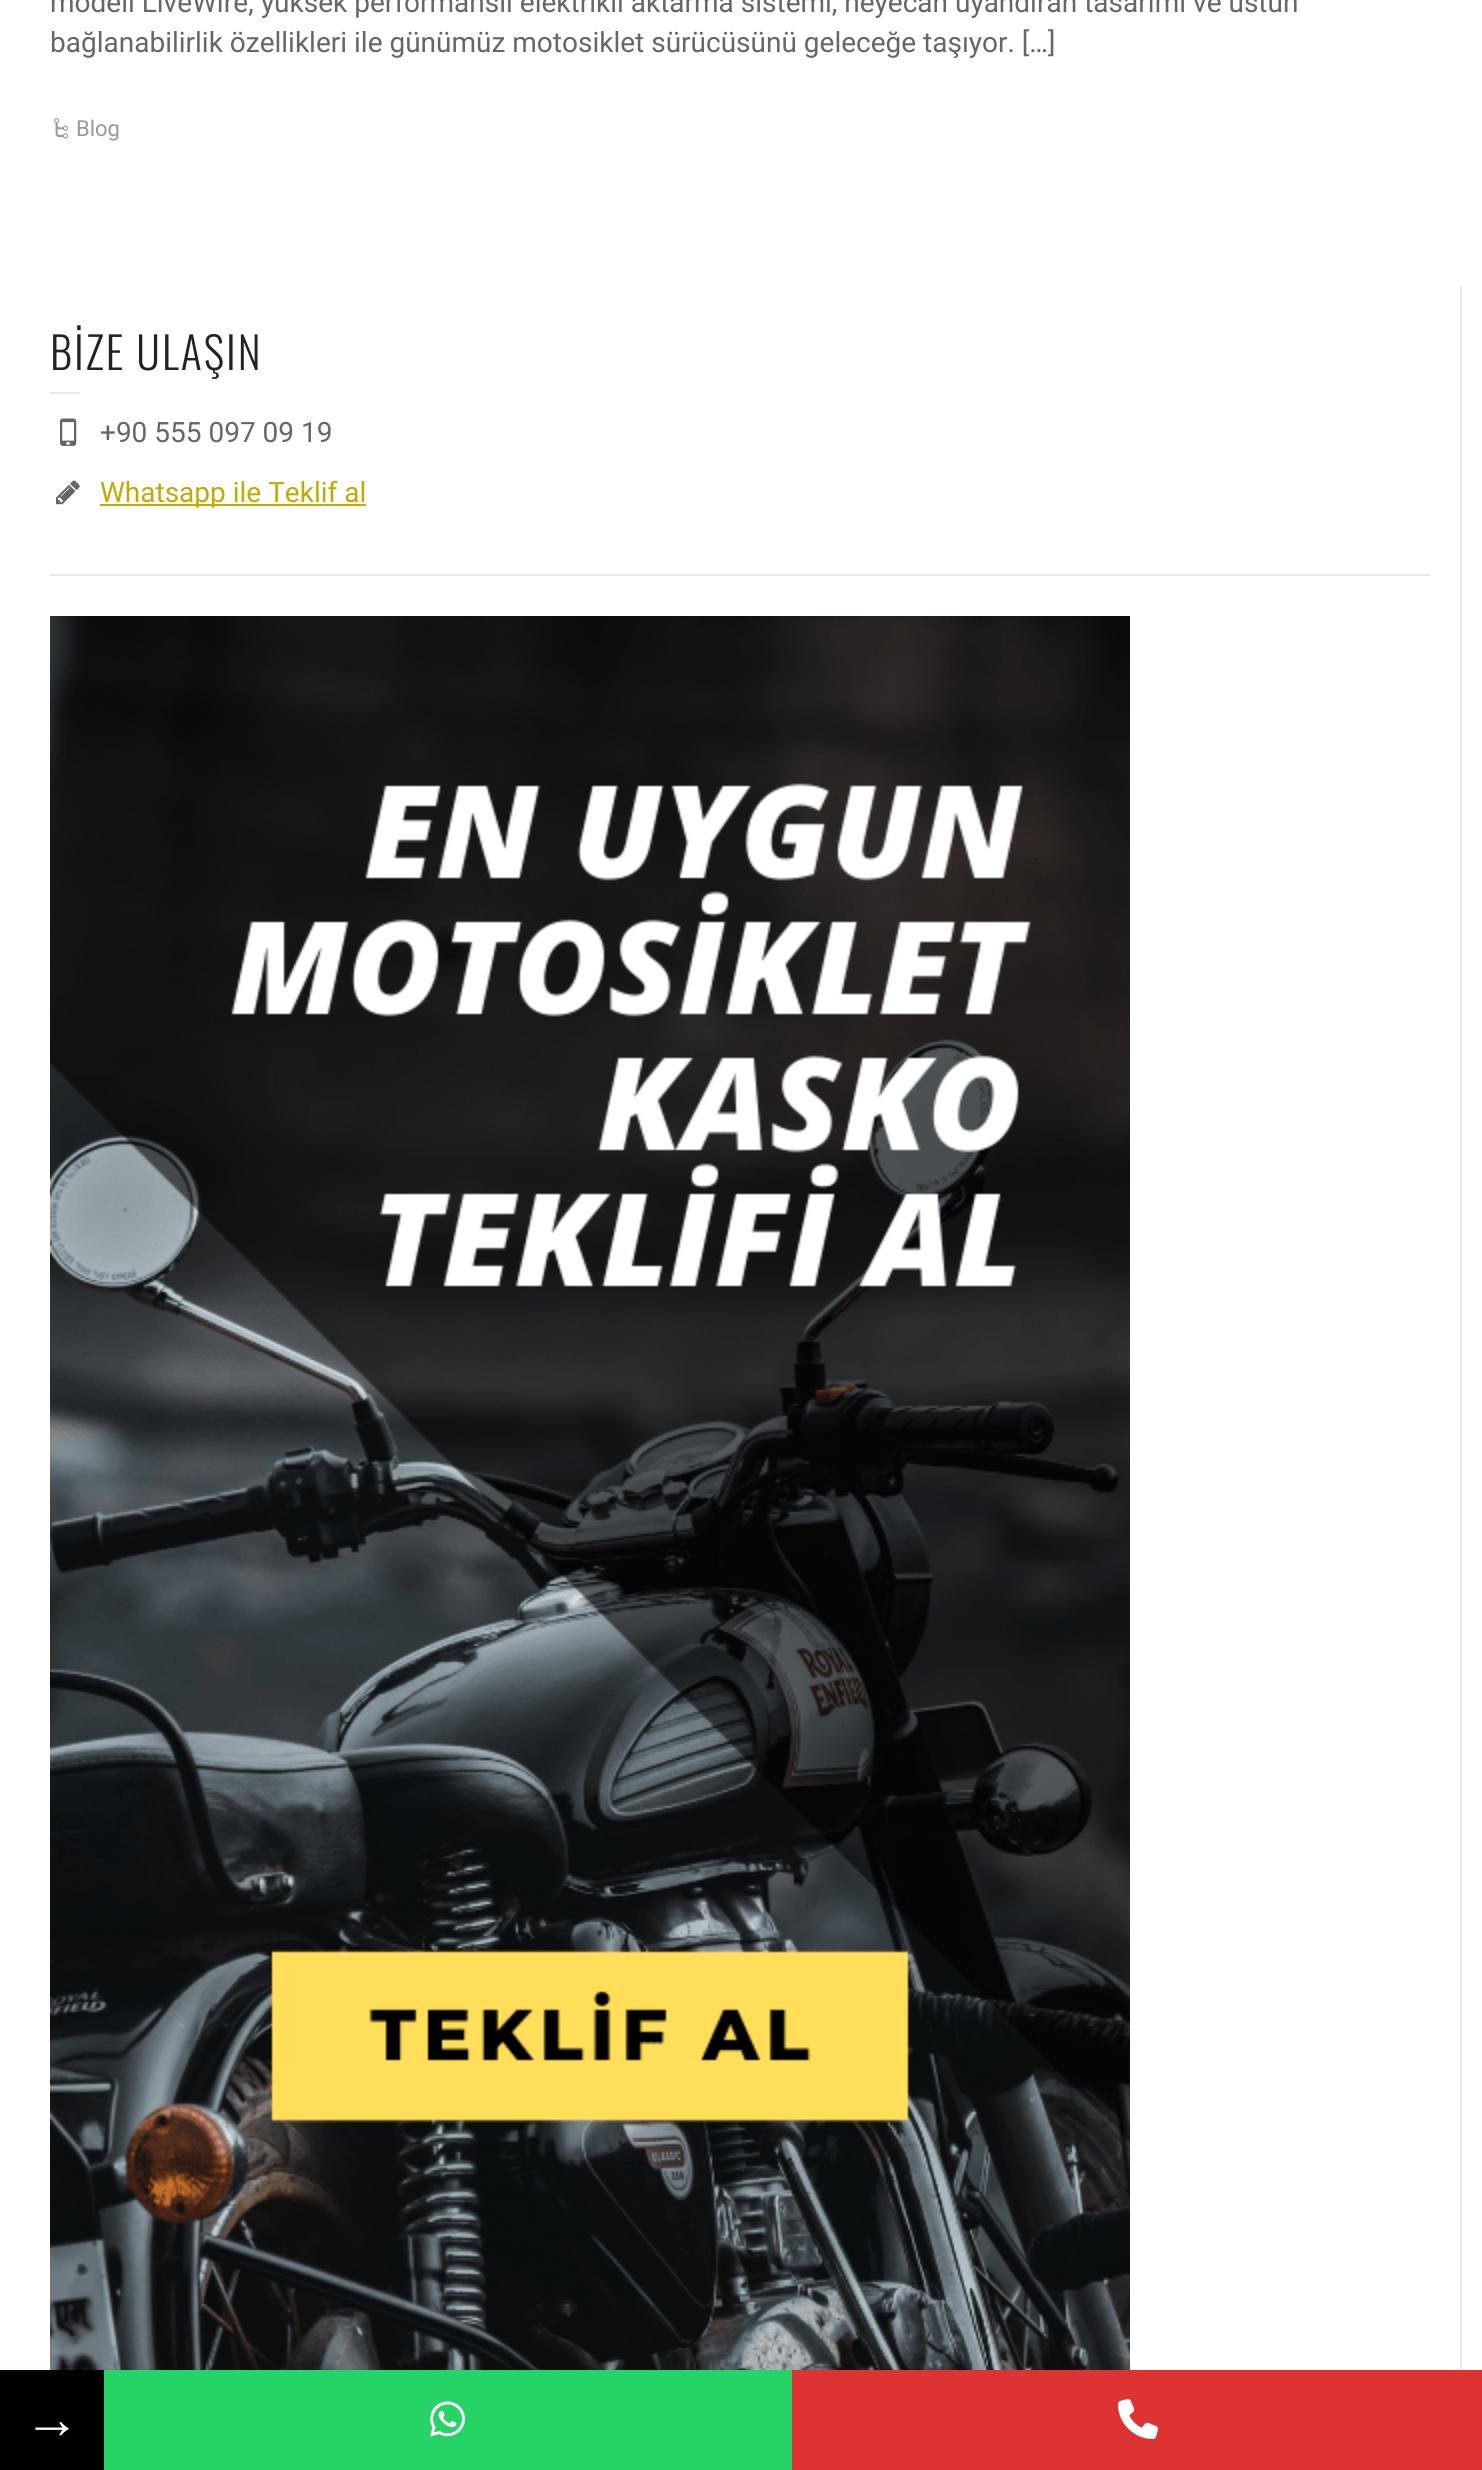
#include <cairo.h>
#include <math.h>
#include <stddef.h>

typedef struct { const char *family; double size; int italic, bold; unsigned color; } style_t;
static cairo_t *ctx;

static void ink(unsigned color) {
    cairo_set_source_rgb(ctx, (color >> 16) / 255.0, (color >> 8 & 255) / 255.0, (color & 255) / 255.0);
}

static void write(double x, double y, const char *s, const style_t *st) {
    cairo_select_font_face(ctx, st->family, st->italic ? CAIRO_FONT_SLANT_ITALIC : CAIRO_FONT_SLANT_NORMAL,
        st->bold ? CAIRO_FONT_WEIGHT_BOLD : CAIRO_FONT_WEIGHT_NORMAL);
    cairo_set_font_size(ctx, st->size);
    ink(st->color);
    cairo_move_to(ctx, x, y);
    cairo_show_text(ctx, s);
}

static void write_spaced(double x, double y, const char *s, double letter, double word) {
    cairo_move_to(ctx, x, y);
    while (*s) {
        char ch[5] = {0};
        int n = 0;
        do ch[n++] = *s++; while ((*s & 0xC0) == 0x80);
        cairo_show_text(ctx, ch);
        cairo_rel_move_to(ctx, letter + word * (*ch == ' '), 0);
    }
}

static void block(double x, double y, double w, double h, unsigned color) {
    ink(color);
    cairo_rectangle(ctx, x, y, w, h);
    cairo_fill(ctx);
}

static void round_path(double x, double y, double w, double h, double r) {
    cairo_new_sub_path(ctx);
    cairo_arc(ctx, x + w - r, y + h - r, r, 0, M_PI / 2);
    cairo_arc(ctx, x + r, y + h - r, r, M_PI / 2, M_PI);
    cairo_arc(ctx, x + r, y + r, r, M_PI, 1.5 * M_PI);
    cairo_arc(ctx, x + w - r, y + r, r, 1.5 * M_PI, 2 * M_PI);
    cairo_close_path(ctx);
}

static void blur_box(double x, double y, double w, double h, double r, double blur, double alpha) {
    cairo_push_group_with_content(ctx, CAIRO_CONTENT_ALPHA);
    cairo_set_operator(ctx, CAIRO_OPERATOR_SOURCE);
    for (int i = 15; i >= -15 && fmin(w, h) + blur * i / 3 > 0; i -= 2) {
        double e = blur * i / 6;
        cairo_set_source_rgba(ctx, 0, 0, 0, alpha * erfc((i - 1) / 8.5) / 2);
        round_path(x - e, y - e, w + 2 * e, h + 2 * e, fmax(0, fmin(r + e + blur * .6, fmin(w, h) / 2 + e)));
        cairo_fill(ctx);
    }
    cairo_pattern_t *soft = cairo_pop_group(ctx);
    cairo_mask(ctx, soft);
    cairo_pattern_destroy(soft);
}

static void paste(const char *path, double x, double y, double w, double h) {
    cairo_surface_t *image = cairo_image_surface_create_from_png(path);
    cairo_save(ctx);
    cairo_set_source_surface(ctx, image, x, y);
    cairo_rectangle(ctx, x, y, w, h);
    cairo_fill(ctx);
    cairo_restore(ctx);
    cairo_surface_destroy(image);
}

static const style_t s1 = {"Roboto", 28, 0, 0, 0x666666};
static const style_t s2 = {"Roboto", 22, 0, 0, 0x999999};
static const style_t s3 = {"Roboto", 28, 0, 0, 0xc3aa00};
static const style_t s4 = {"Liberation Serif", 56, 0, 0, 0xffffff};

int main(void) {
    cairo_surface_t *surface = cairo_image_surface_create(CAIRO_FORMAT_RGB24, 1482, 2470);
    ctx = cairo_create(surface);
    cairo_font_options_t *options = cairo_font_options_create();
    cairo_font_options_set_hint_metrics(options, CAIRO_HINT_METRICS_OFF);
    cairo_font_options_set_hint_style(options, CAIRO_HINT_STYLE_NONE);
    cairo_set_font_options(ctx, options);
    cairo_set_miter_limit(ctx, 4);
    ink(0xffffff);
    cairo_paint(ctx);
    write(50, 12, "modeli LiveWire; yüksek performanslı elektrikli aktarma sistemi, heyecan uyandıran tasarımı ve üstün", &s1);
    write(50, 52, "bağlanabilirlik özellikleri ile günümüz motosiklet sürücüsünü geleceğe taşıyor. […]", &s1);
    paste("pic1.png", 54, 118, 14, 21);
    write(76, 136, "Blog", &s2);
    block(1460, 286, 2, 2084, 0xe8e8e8);
    cairo_select_font_face(ctx, "Oswald Light", CAIRO_FONT_SLANT_NORMAL, CAIRO_FONT_WEIGHT_NORMAL);
    cairo_set_font_size(ctx, 44);
    ink(0x222222);
    write_spaced(50, 370, "BİZE ULAŞIN", 2, 0);
    block(50, 392, 30, 2, 0xe8e8e8);
    paste("pic2.png", 60, 418, 17, 28);
    write(100, 442, "+90 555 097 09 19", &s1);
    paste("pic3.png", 56, 480, 24, 25);
    block(100, 504, 266, 2, 0xc3aa00);
    write(100, 502, "Whatsapp ile Teklif al", &s3);
    block(50, 574, 1380, 2, 0xe8e8e8);
    paste("pic4.png", 50, 616, 1080, 1754);
    ink(0x000000);
    blur_box(0, 2376, 104, 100, 0, 6, 0.16);
    block(0, 2370, 104, 100, 0x000000);
    write(24, 2438, "→", &s4);
    block(104, 2370, 688, 100, 0x26d367);
    paste("pic5.png", 430, 2401, 35, 36);
    block(792, 2370, 690, 100, 0xdd3333);
    paste("pic6.png", 1118, 2399, 40, 40);
    cairo_surface_write_to_png(surface, "screenshot.png");
    cairo_font_options_destroy(options);
    cairo_destroy(ctx);
    cairo_surface_destroy(surface);
    return 0;
}
